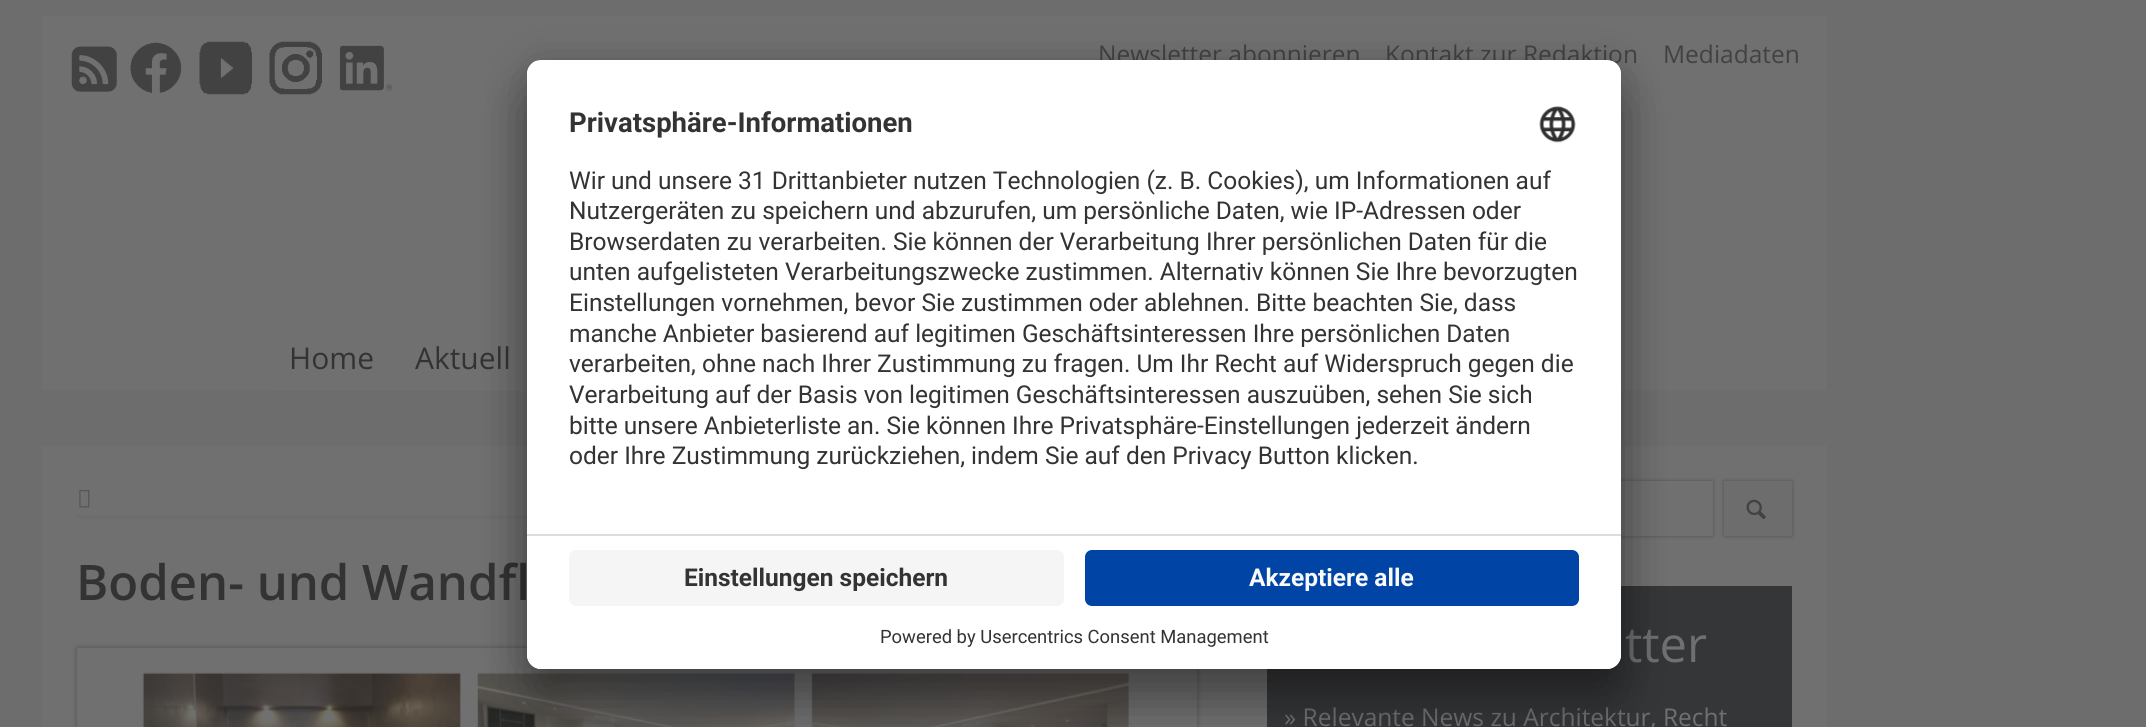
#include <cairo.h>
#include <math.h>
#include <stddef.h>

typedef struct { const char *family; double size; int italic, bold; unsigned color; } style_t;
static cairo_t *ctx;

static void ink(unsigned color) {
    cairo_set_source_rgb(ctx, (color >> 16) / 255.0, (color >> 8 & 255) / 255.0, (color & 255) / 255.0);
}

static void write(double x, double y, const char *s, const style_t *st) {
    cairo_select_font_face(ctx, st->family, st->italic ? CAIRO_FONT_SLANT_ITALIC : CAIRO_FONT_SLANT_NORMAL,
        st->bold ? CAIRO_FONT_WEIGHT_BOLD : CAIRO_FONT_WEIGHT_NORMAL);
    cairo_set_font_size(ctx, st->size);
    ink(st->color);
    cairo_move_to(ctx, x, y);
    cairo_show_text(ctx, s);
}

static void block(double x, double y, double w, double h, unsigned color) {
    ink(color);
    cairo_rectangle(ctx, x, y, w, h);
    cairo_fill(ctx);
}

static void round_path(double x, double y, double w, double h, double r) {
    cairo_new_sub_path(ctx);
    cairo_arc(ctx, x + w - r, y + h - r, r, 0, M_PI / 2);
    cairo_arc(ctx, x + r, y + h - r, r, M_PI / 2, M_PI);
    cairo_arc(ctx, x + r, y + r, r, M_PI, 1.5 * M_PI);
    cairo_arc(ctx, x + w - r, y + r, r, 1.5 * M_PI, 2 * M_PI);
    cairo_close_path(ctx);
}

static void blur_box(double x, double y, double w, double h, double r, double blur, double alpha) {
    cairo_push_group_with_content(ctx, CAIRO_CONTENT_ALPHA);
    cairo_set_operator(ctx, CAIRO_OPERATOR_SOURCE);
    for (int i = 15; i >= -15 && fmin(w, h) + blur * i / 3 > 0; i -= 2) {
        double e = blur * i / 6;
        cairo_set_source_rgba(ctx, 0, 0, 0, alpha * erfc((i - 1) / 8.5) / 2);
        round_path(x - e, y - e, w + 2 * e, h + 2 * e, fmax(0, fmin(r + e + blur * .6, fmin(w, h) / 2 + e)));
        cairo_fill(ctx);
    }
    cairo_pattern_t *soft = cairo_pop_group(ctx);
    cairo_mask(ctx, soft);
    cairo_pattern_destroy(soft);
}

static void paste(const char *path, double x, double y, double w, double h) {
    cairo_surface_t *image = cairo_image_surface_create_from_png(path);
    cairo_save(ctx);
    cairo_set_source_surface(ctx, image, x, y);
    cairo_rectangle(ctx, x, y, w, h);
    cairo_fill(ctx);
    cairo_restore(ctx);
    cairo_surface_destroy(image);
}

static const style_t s1 = {"Open Sans", 24.5, 0, 0, 0x424242};
static const style_t s2 = {"Open Sans", 30, 0, 0, 0x333333};
static const style_t s3 = {"Open Sans SemiBold", 49, 0, 0, 0x333333};
static const style_t s4 = {"Open Sans", 49, 0, 0, 0x707070};
static const style_t s5 = {"Open Sans", 24.5, 0, 0, 0x707070};
static const style_t s6 = {"Roboto", 27.5, 0, 1, 0x333333};
static const style_t s7 = {"Roboto", 24.5, 0, 0, 0x333333};
static const style_t s8 = {"Roboto", 24.5, 0, 1, 0x333333};
static const style_t s9 = {"Roboto", 24.5, 0, 1, 0xfafafa};
static const style_t s10 = {"Roboto", 18.4, 0, 0, 0x333333};

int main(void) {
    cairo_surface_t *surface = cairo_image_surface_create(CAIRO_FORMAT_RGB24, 2146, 727);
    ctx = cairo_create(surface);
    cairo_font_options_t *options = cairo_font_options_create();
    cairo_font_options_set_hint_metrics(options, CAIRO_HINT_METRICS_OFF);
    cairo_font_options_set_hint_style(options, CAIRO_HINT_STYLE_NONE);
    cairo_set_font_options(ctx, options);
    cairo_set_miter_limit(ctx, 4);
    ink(0x6d6d6d);
    cairo_paint(ctx);
    block(42, 16, 1785, 374, 0x707070);
    paste("pic1.png", 71, 46, 46, 46);
    paste("pic2.png", 130, 42, 52, 51);
    paste("pic3.png", 199, 41, 53, 54);
    paste("pic4.png", 269, 41, 53, 54);
    paste("pic5.png", 340, 45, 52, 46);
    write(1098, 63, "Newsletter abonnieren", &s1);
    write(1385, 63, "Kontakt zur Redaktion", &s1);
    write(1663, 63, "Mediadaten", &s1);
    block(271, 390, 119, 1, 0x707070);
    write(289, 369, "Home", &s2);
    block(397, 390, 132, 1, 0x707070);
    write(415, 369, "Aktuell", &s2);
    block(42, 446, 1785, 281, 0x707070);
    block(77, 515, 450, 4, 0x6d6d6d);
    paste("pic6.png", 79, 490, 11, 18);
    write(76, 600, "Boden- und Wandfl", &s3);
    cairo_save(ctx);
    cairo_set_fill_rule(ctx, CAIRO_FILL_RULE_EVEN_ODD);
    cairo_new_path(ctx);
    cairo_move_to(ctx, 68, 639);
    cairo_line_to(ctx, 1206, 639);
    cairo_line_to(ctx, 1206, 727);
    cairo_line_to(ctx, 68, 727);
    cairo_close_path(ctx);
    cairo_move_to(ctx, 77, 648);
    cairo_line_to(ctx, 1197, 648);
    cairo_line_to(ctx, 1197, 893);
    cairo_line_to(ctx, 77, 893);
    cairo_close_path(ctx);
    cairo_clip(ctx);
    ink(0x525252);
    blur_box(77, 648, 1120, 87, 0, 2.5, 1);
    cairo_restore(ctx);
    paste("pic7.png", 142, 672, 319, 55);
    paste("pic8.png", 477, 672, 318, 55);
    paste("pic9.png", 811, 672, 318, 55);
    ink(0x525252);
    blur_box(1267, 481, 446, 55, 0, 2, 1);
    block(1621, 481, 92, 55, 0x707070);
    ink(0x525252);
    blur_box(1724, 481, 68, 55, 0, 2, 1);
    block(1724, 481, 68, 55, 0x6d6d6d);
    paste("pic10.png", 1746, 499, 20, 21);
    block(1267, 586, 525, 141, 0x353638);
    write(1625, 662, "tter", &s4);
    write(1284, 726, "» Relevante News zu Architektur, Recht", &s5);
    ink(0x000000);
    blur_box(527, 95, 1094, 609, 14, 24.5, 0.3);
    blur_box(527, 68, 1094, 609, 14, 23, 0.22);
    ink(0xffffff);
    round_path(527, 60, 1094, 609, 14);
    cairo_fill(ctx);
    cairo_save(ctx);
    round_path(527, 60, 1094, 609, 14);
    cairo_clip(ctx);
    cairo_new_path(ctx);
    cairo_move_to(ctx, 541, 60);
    cairo_line_to(ctx, 1607, 60);
    cairo_curve_to(ctx, 1614.5, 60, 1621, 66.5, 1621, 74);
    cairo_line_to(ctx, 1621, 534);
    cairo_line_to(ctx, 527, 534);
    cairo_line_to(ctx, 527, 74);
    cairo_curve_to(ctx, 527, 66.5, 533.5, 60, 541, 60);
    cairo_close_path(ctx);
    cairo_clip(ctx);
    block(527, 61, 1094, 473, 0xffffff);
    cairo_restore(ctx);
    write(569, 132, "Privatsphäre-Informationen", &s6);
    paste("pic11.png", 1539, 106, 37, 37);
    write(569, 189, "Wir und unsere 31 Drittanbieter nutzen Technologien (z. B. Cookies), um Informationen auf", &s7);
    write(569, 219, "Nutzergeräten zu speichern und abzurufen, um persönliche Daten, wie IP-Adressen oder", &s7);
    write(569, 250, "Browserdaten zu verarbeiten. Sie können der Verarbeitung Ihrer persönlichen Daten für die", &s7);
    write(569, 280, "unten aufgelisteten Verarbeitungszwecke zustimmen. Alternativ können Sie Ihre bevorzugten", &s7);
    write(569, 311, "Einstellungen vornehmen, bevor Sie zustimmen oder ablehnen. Bitte beachten Sie, dass", &s7);
    write(569, 342, "manche Anbieter basierend auf legitimen Geschäftsinteressen Ihre persönlichen Daten", &s7);
    write(569, 372, "verarbeiten, ohne nach Ihrer Zustimmung zu fragen. Um Ihr Recht auf Widerspruch gegen die", &s7);
    write(569, 403, "Verarbeitung auf der Basis von legitimen Geschäftsinteressen auszuüben, sehen Sie sich", &s7);
    write(569, 434, "bitte unsere Anbieterliste an. Sie können Ihre Privatsphäre-Einstellungen jederzeit ändern", &s7);
    write(569, 464, "oder Ihre Zustimmung zurückziehen, indem Sie auf den Privacy Button klicken.", &s7);
    ink(0xffffff);
    cairo_new_path(ctx);
    cairo_move_to(ctx, 527, 534);
    cairo_line_to(ctx, 1621, 534);
    cairo_line_to(ctx, 1621, 655);
    cairo_curve_to(ctx, 1621, 662.5, 1614.5, 669, 1607, 669);
    cairo_line_to(ctx, 541, 669);
    cairo_curve_to(ctx, 533.5, 669, 527, 662.5, 527, 655);
    cairo_close_path(ctx);
    cairo_fill(ctx);
    block(527, 534, 1094, 2, 0xdddddd);
    ink(0xf5f5f5);
    round_path(569, 550, 495, 56, 7);
    cairo_fill(ctx);
    write(684, 586, "Einstellungen speichern", &s8);
    ink(0x0045a5);
    round_path(1085, 550, 494, 56, 7);
    cairo_fill(ctx);
    write(1249, 586, "Akzeptiere alle", &s9);
    write(880, 643, "Powered by Usercentrics Consent Management", &s10);
    cairo_surface_write_to_png(surface, "screenshot.png");
    cairo_font_options_destroy(options);
    cairo_destroy(ctx);
    cairo_surface_destroy(surface);
    return 0;
}
